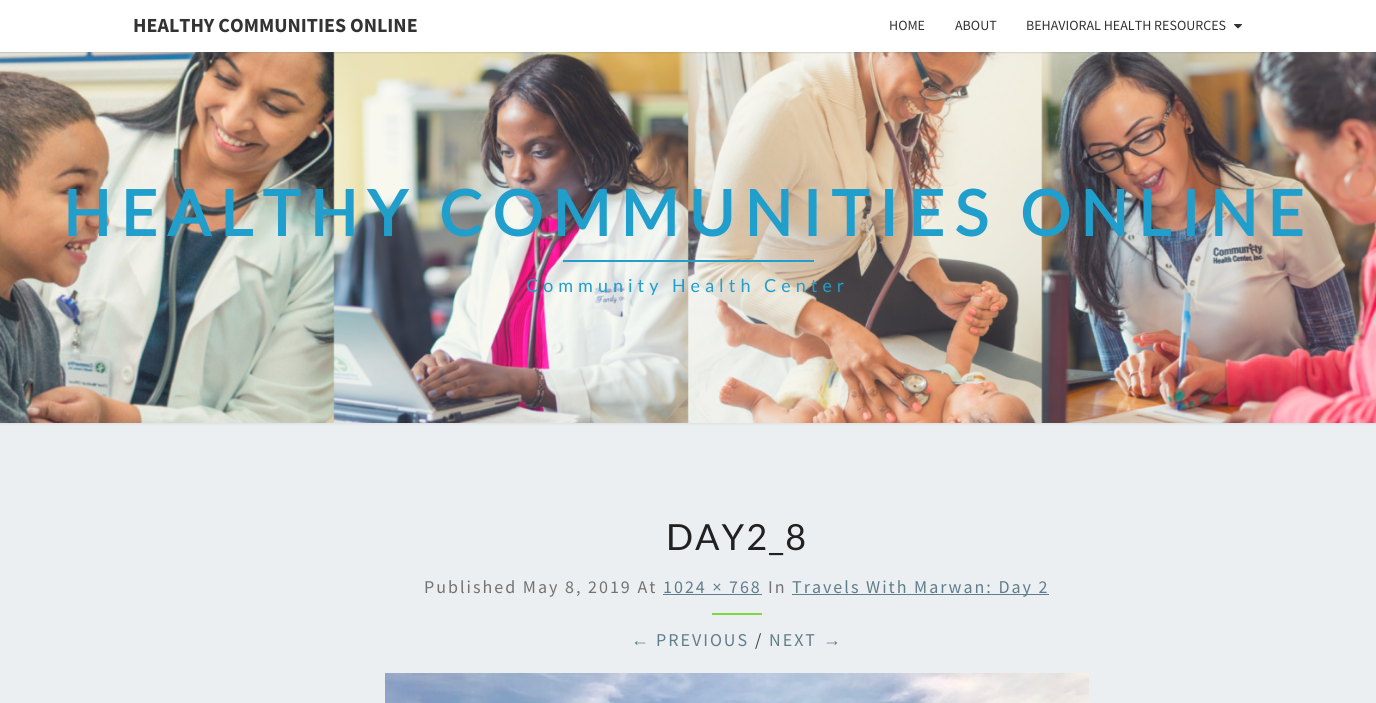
#include <cairo.h>
#include <math.h>
#include <stddef.h>

typedef struct { const char *family; double size; int italic, bold; unsigned color; } style_t;
static cairo_t *ctx;

static void ink(unsigned color) {
    cairo_set_source_rgb(ctx, (color >> 16) / 255.0, (color >> 8 & 255) / 255.0, (color & 255) / 255.0);
}

static void write(double x, double y, const char *s, const style_t *st) {
    cairo_select_font_face(ctx, st->family, st->italic ? CAIRO_FONT_SLANT_ITALIC : CAIRO_FONT_SLANT_NORMAL,
        st->bold ? CAIRO_FONT_WEIGHT_BOLD : CAIRO_FONT_WEIGHT_NORMAL);
    cairo_set_font_size(ctx, st->size);
    ink(st->color);
    cairo_move_to(ctx, x, y);
    cairo_show_text(ctx, s);
}

static void write_spaced(double x, double y, const char *s, double letter, double word) {
    cairo_move_to(ctx, x, y);
    while (*s) {
        char ch[5] = {0};
        int n = 0;
        do ch[n++] = *s++; while ((*s & 0xC0) == 0x80);
        cairo_show_text(ctx, ch);
        cairo_rel_move_to(ctx, letter + word * (*ch == ' '), 0);
    }
}

static void block(double x, double y, double w, double h, unsigned color) {
    ink(color);
    cairo_rectangle(ctx, x, y, w, h);
    cairo_fill(ctx);
}

static void round_path(double x, double y, double w, double h, double r) {
    cairo_new_sub_path(ctx);
    cairo_arc(ctx, x + w - r, y + h - r, r, 0, M_PI / 2);
    cairo_arc(ctx, x + r, y + h - r, r, M_PI / 2, M_PI);
    cairo_arc(ctx, x + r, y + r, r, M_PI, 1.5 * M_PI);
    cairo_arc(ctx, x + w - r, y + r, r, 1.5 * M_PI, 2 * M_PI);
    cairo_close_path(ctx);
}

static void blur_box(double x, double y, double w, double h, double r, double blur, double alpha) {
    cairo_push_group_with_content(ctx, CAIRO_CONTENT_ALPHA);
    cairo_set_operator(ctx, CAIRO_OPERATOR_SOURCE);
    for (int i = 15; i >= -15 && fmin(w, h) + blur * i / 3 > 0; i -= 2) {
        double e = blur * i / 6;
        cairo_set_source_rgba(ctx, 0, 0, 0, alpha * erfc((i - 1) / 8.5) / 2);
        round_path(x - e, y - e, w + 2 * e, h + 2 * e, fmax(0, fmin(r + e + blur * .6, fmin(w, h) / 2 + e)));
        cairo_fill(ctx);
    }
    cairo_pattern_t *soft = cairo_pop_group(ctx);
    cairo_mask(ctx, soft);
    cairo_pattern_destroy(soft);
}

static void paste(const char *path, double x, double y, double w, double h) {
    cairo_surface_t *image = cairo_image_surface_create_from_png(path);
    cairo_save(ctx);
    cairo_set_source_surface(ctx, image, x, y);
    cairo_rectangle(ctx, x, y, w, h);
    cairo_fill(ctx);
    cairo_restore(ctx);
    cairo_surface_destroy(image);
}

static const style_t s1 = {"Source Sans Pro", 20, 0, 1, 0x333333};
static const style_t s2 = {"Source Sans Pro", 14, 0, 0, 0x333333};

int main(void) {
    cairo_surface_t *surface = cairo_image_surface_create(CAIRO_FORMAT_RGB24, 1376, 703);
    ctx = cairo_create(surface);
    cairo_font_options_t *options = cairo_font_options_create();
    cairo_font_options_set_hint_metrics(options, CAIRO_HINT_METRICS_OFF);
    cairo_font_options_set_hint_style(options, CAIRO_HINT_STYLE_NONE);
    cairo_set_font_options(ctx, options);
    cairo_set_miter_limit(ctx, 4);
    ink(0xeceff1);
    cairo_paint(ctx);
    ink(0xb6b6b6);
    blur_box(-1, 51, 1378, 373, 0, 1, 0.3);
    paste("pic2.png", 0, 52, 1376, 371);
    ink(0x646464);
    blur_box(0, 1, 1376, 52, 0, 0.5, 0.2);
    block(0, 0, 1376, 52, 0xffffff);
    write(133, 32, "HEALTHY COMMUNITIES ONLINE", &s1);
    write(889, 30, "HOME", &s2);
    write(955, 30, "ABOUT", &s2);
    write(1026, 30, "BEHAVIORAL HEALTH RESOURCES", &s2);
    paste("pic1.png", 1234, 24, 8, 5);
    cairo_select_font_face(ctx, "Lato", CAIRO_FONT_SLANT_NORMAL, CAIRO_FONT_WEIGHT_BOLD);
    cairo_set_font_size(ctx, 63);
    ink(0x209ecc);
    write_spaced(63, 236, "HEALTHY COMMUNITIES ONLINE", 10, 0);
    block(563, 260, 251, 2, 0x209ecc);
    cairo_select_font_face(ctx, "Lato", CAIRO_FONT_SLANT_NORMAL, CAIRO_FONT_WEIGHT_NORMAL);
    cairo_set_font_size(ctx, 18);
    write_spaced(526, 292, "Community Health Center", 5, 0);
    cairo_set_font_size(ctx, 36);
    ink(0x212121);
    write_spaced(666, 550, "DAY2_8", 2, 0);
    cairo_select_font_face(ctx, "Source Sans Pro", CAIRO_FONT_SLANT_NORMAL, CAIRO_FONT_WEIGHT_NORMAL);
    cairo_set_font_size(ctx, 18);
    ink(0x727272);
    write_spaced(424, 593, "Published May 8, 2019 At", 2, 0);
    ink(0x607d8b);
    write_spaced(663, 593, "1024 × 768", 2, 0);
    block(663, 594, 99, 1, 0x607d8b);
    ink(0x727272);
    write_spaced(768, 593, "In", 2, 0);
    block(792, 594, 257, 1, 0x607d8b);
    write_spaced(792, 593, "Travels With Marwan: Day 2", 2, 0);
    block(712, 613, 50, 2, 0x81d742);
    cairo_select_font_face(ctx, "Liberation Sans", CAIRO_FONT_SLANT_NORMAL, CAIRO_FONT_WEIGHT_NORMAL);
    ink(0x607d8b);
    write_spaced(631, 646, "←", 2, 0);
    cairo_select_font_face(ctx, "Source Sans Pro", CAIRO_FONT_SLANT_NORMAL, CAIRO_FONT_WEIGHT_NORMAL);
    write_spaced(656, 646, "PREVIOUS", 2, 0);
    ink(0x424242);
    write_spaced(755, 646, "/", 2, 0);
    ink(0x607d8b);
    write_spaced(769, 646, "NEXT", 2, 0);
    cairo_select_font_face(ctx, "Liberation Sans", CAIRO_FONT_SLANT_NORMAL, CAIRO_FONT_WEIGHT_NORMAL);
    write_spaced(823, 646, "→", 2, 0);
    paste("pic3.png", 385, 673, 704, 30);
    cairo_surface_write_to_png(surface, "screenshot.png");
    cairo_font_options_destroy(options);
    cairo_destroy(ctx);
    cairo_surface_destroy(surface);
    return 0;
}
